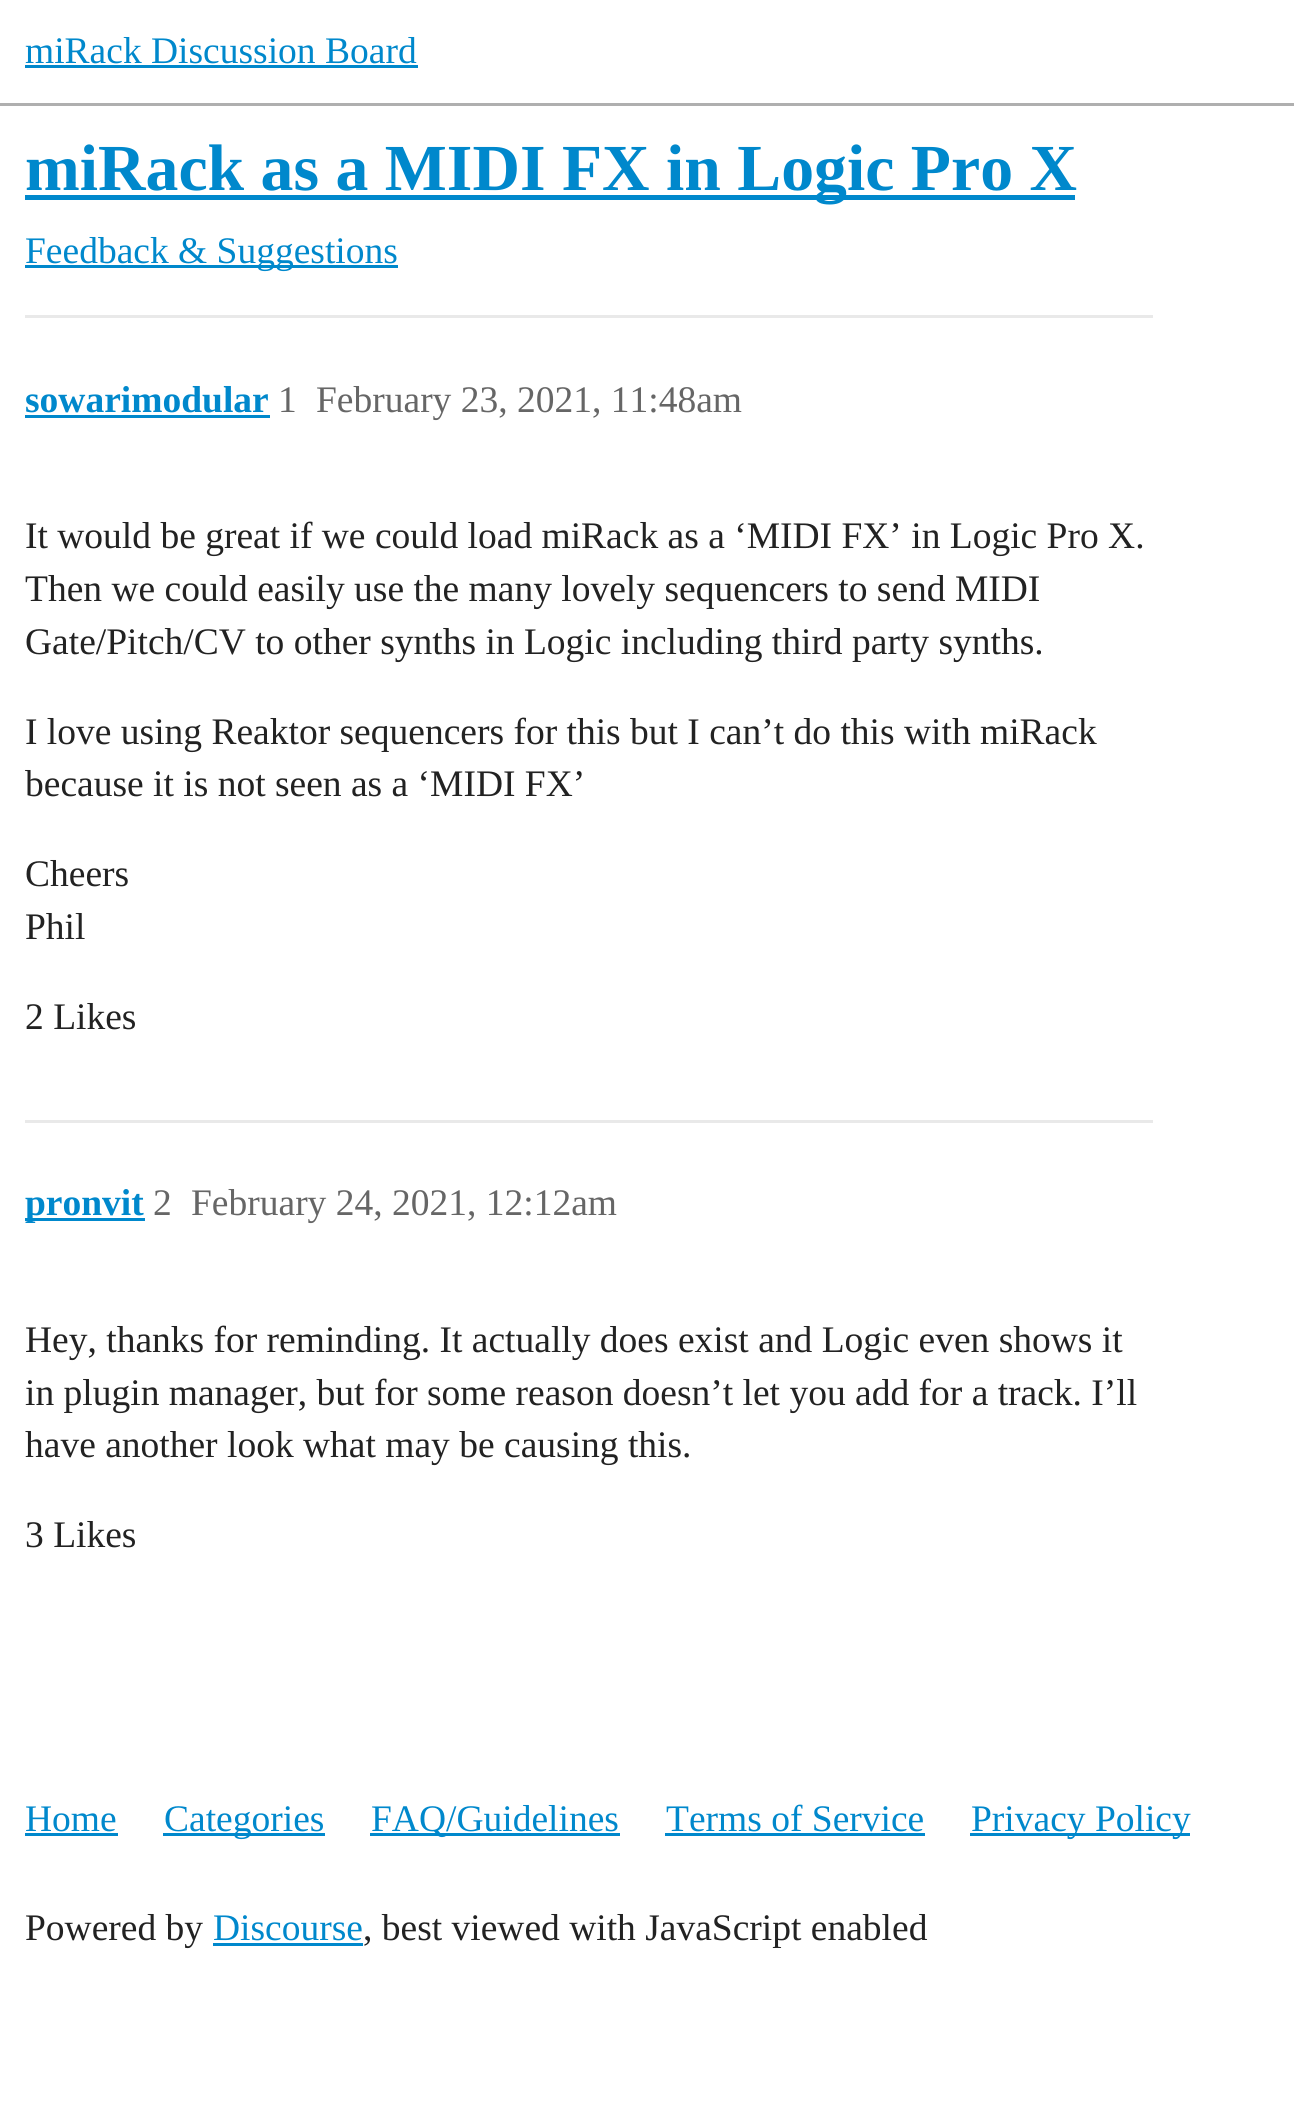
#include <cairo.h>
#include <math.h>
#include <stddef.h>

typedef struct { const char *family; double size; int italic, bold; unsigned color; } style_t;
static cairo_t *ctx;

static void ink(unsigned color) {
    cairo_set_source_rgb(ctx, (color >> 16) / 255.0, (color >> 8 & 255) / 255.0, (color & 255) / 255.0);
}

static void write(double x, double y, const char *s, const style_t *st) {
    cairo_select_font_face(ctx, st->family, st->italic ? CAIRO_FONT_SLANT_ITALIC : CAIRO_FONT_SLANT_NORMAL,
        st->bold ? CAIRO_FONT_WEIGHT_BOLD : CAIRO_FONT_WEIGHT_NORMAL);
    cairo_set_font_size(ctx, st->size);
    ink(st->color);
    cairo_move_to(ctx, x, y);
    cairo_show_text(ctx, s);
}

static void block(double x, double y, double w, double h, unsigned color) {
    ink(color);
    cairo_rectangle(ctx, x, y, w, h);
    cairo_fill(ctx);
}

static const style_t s1 = {"Liberation Serif", 37.5, 0, 0, 0x0088cc};
static const style_t s2 = {"Liberation Serif", 65.75, 0, 1, 0x0088cc};
static const style_t s3 = {"Liberation Serif", 37.5, 0, 1, 0x0088cc};
static const style_t s4 = {"Liberation Serif", 37.5, 0, 0, 0x666666};
static const style_t s5 = {"Liberation Serif", 37.5, 0, 0, 0x222222};

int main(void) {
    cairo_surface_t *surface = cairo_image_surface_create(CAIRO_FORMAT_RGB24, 1294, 2125);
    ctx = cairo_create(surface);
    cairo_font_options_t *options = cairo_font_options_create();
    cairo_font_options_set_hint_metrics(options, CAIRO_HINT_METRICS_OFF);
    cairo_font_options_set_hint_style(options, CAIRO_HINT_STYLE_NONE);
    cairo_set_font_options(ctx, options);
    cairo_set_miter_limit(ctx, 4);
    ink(0xffffff);
    cairo_paint(ctx);
    block(0, 103, 1294, 3, 0xafafaf);
    write(25, 63, "miRack Discussion Board", &s1);
    block(25, 65, 393, 3, 0x0088cc);
    block(25, 195, 1050, 5, 0x0088cc);
    write(25, 190, "miRack as a MIDI FX in Logic Pro X", &s2);
    block(25, 265, 373, 3, 0x0088cc);
    write(25, 263, "Feedback & Suggestions", &s1);
    block(25, 315, 1128, 3, 0xe9e9e9);
    write(25, 412, "sowarimodular", &s3);
    block(25, 415, 245, 3, 0x0088cc);
    write(278, 412, "1", &s4);
    write(316, 412, "February 23, 2021, 11:48am", &s4);
    write(25, 548, "It would be great if we could load miRack as a ‘MIDI FX’ in Logic Pro X.", &s5);
    write(25, 601, "Then we could easily use the many lovely sequencers to send MIDI", &s5);
    write(25, 654, "Gate/Pitch/CV to other synths in Logic including third party synths.", &s5);
    write(25, 744, "I love using Reaktor sequencers for this but I can’t do this with miRack", &s5);
    write(25, 796, "because it is not seen as a ‘MIDI FX’", &s5);
    write(25, 886, "Cheers", &s5);
    write(25, 939, "Phil", &s5);
    write(25, 1029, "2 Likes", &s5);
    block(25, 1120, 1128, 3, 0xe9e9e9);
    block(25, 1218, 120, 3, 0x0088cc);
    write(25, 1215, "pronvit", &s3);
    write(153, 1215, "2", &s4);
    write(191, 1215, "February 24, 2021, 12:12am", &s4);
    write(25, 1352, "Hey, thanks for reminding. It actually does exist and Logic even shows it", &s5);
    write(25, 1405, "in plugin manager, but for some reason doesn’t let you add for a track. I’ll", &s5);
    write(25, 1457, "have another look what may be causing this.", &s5);
    write(25, 1547, "3 Likes", &s5);
    write(25, 1831, "Home", &s1);
    block(25, 1833, 93, 3, 0x0088cc);
    block(163, 1833, 162, 3, 0x0088cc);
    write(164, 1831, "Categories", &s1);
    block(370, 1833, 250, 3, 0x0088cc);
    write(371, 1831, "FAQ/Guidelines", &s1);
    write(666, 1831, "Terms of Service", &s1);
    block(665, 1833, 260, 3, 0x0088cc);
    block(970, 1833, 220, 3, 0x0088cc);
    write(971, 1831, "Privacy Policy", &s1);
    write(25, 1940, "Powered by", &s5);
    write(213, 1940, "Discourse", &s1);
    block(213, 1943, 150, 3, 0x0088cc);
    write(363, 1940, ", best viewed with JavaScript enabled", &s5);
    cairo_surface_write_to_png(surface, "screenshot.png");
    cairo_font_options_destroy(options);
    cairo_destroy(ctx);
    cairo_surface_destroy(surface);
    return 0;
}
